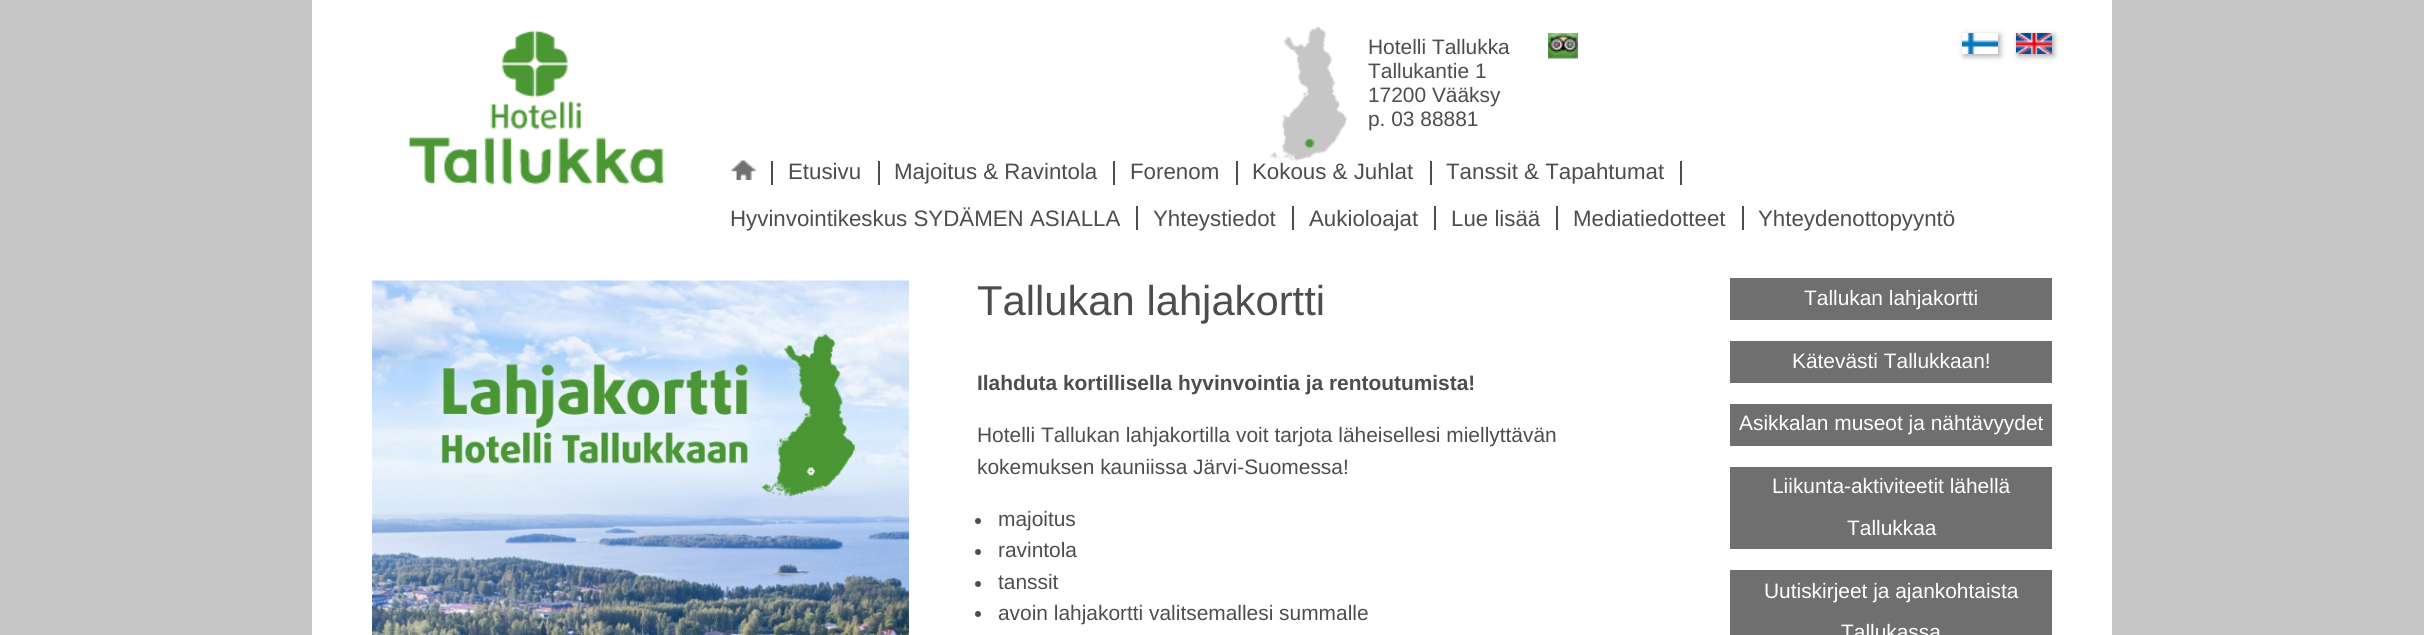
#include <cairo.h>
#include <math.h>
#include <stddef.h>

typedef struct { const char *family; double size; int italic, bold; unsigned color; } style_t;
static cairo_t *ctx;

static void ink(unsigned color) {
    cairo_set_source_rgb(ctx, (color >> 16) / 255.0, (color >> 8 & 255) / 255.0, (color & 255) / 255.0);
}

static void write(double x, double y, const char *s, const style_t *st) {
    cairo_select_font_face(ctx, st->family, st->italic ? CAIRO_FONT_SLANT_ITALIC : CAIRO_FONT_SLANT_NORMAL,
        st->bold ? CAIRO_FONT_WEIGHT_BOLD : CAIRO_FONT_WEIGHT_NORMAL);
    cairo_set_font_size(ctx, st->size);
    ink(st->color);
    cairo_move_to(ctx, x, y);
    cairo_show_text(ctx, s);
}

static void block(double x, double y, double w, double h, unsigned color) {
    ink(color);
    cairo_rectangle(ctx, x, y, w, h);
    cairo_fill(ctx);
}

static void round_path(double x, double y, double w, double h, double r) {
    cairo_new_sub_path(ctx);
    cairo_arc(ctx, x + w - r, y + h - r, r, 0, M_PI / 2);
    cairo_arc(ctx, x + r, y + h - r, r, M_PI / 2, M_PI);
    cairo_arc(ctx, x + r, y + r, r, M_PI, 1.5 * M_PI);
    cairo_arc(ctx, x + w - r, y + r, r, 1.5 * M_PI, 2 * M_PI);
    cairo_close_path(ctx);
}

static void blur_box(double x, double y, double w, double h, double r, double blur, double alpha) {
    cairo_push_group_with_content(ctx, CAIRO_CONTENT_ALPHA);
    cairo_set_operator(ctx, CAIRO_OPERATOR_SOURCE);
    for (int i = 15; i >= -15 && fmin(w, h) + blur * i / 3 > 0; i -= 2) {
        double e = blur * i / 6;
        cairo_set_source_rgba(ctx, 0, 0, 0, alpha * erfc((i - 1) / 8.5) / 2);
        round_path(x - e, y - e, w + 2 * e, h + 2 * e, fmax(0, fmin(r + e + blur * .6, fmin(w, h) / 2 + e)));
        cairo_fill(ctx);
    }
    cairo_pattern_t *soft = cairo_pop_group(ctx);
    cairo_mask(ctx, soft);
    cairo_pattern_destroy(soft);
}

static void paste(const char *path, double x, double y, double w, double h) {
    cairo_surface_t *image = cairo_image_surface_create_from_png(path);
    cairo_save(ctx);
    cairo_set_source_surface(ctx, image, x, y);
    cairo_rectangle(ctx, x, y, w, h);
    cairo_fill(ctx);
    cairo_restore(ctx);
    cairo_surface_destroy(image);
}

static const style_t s1 = {"Liberation Sans", 20.9, 0, 0, 0x4d4d4d};
static const style_t s2 = {"Liberation Sans", 22.3, 0, 0, 0x4d4d4d};
static const style_t s3 = {"Liberation Sans", 41.75, 0, 0, 0x4d4d4d};
static const style_t s4 = {"Liberation Sans", 20.9, 0, 1, 0x4d4d4d};
static const style_t s5 = {"Liberation Sans", 20.9, 0, 0, 0xffffff};

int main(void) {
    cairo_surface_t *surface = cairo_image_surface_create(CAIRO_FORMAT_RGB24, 2424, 635);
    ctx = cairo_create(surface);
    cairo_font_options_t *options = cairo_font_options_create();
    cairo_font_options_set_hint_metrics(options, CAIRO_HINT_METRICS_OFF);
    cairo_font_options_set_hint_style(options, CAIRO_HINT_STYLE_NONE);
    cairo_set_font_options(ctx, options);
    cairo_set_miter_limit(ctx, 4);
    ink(0xc6c6c6);
    cairo_paint(ctx);
    block(312, 0, 1800, 635, 0xffffff);
    paste("pic1.png", 409, 30, 255, 155);
    paste("pic2.png", 1270, 26, 78, 135);
    write(1368, 54, "Hotelli Tallukka", &s1);
    write(1368, 78, "Tallukantie 1", &s1);
    write(1368, 102, "17200 Vääksy", &s1);
    write(1368, 126, "p. 03 88881", &s1);
    paste("pic3.png", 1548, 33, 30, 26);
    ink(0xaaaaaa);
    blur_box(1964, 35, 36, 21, 0, 3, 1);
    paste("pic4.png", 1962, 33, 36, 21);
    blur_box(2018, 35, 36, 21, 0, 3, 1);
    paste("pic5.png", 2016, 33, 36, 21);
    block(771, 161, 2, 24, 0x4d4d4d);
    paste("pic6.png", 730, 160, 26, 20);
    block(878, 161, 2, 24, 0x4d4d4d);
    write(788, 179, "Etusivu", &s2);
    block(1113, 161, 2, 24, 0x4d4d4d);
    write(894, 179, "Majoitus & Ravintola", &s2);
    block(1236, 161, 2, 24, 0x4d4d4d);
    write(1130, 179, "Forenom", &s2);
    block(1430, 161, 2, 24, 0x4d4d4d);
    write(1252, 179, "Kokous & Juhlat", &s2);
    block(1680, 161, 2, 24, 0x4d4d4d);
    write(1446, 179, "Tanssit & Tapahtumat", &s2);
    block(1136, 206, 2, 24, 0x4d4d4d);
    write(730, 226, "Hyvinvointikeskus SYDÄMEN ASIALLA", &s2);
    block(1292, 206, 2, 24, 0x4d4d4d);
    write(1153, 226, "Yhteystiedot", &s2);
    block(1434, 206, 2, 24, 0x4d4d4d);
    write(1309, 226, "Aukioloajat", &s2);
    block(1556, 206, 2, 24, 0x4d4d4d);
    write(1451, 226, "Lue lisää", &s2);
    block(1742, 206, 2, 24, 0x4d4d4d);
    write(1573, 226, "Mediatiedotteet", &s2);
    write(1758, 226, "Yhteydenottopyyntö", &s2);
    paste("pic7.png", 372, 280, 537, 355);
    write(977, 315, "Tallukan lahjakortti", &s3);
    write(977, 390, "Ilahduta kortillisella hyvinvointia ja rentoutumista!", &s4);
    write(977, 442, "Hotelli Tallukan lahjakortilla voit tarjota läheisellesi miellyttävän", &s1);
    write(977, 474, "kokemuksen kauniissa Järvi-Suomessa!", &s1);
    cairo_new_path(ctx);
    cairo_arc(ctx, 978, 521, 3, 0, 2 * M_PI);
    cairo_fill(ctx);
    write(998, 526, "majoitus", &s1);
    cairo_new_path(ctx);
    cairo_arc(ctx, 978, 552, 3, 0, 2 * M_PI);
    cairo_fill(ctx);
    write(998, 557, "ravintola", &s1);
    cairo_new_path(ctx);
    cairo_arc(ctx, 978, 584, 3, 0, 2 * M_PI);
    cairo_fill(ctx);
    write(998, 589, "tanssit", &s1);
    cairo_new_path(ctx);
    cairo_arc(ctx, 978, 614, 3, 0, 2 * M_PI);
    cairo_fill(ctx);
    write(998, 620, "avoin lahjakortti valitsemallesi summalle", &s1);
    block(1730, 278, 322, 42, 0x706f6f);
    write(1804, 305, "Tallukan lahjakortti", &s5);
    block(1730, 341, 322, 42, 0x706f6f);
    write(1792, 368, "Kätevästi Tallukkaan!", &s5);
    block(1730, 404, 322, 42, 0x706f6f);
    write(1739, 430, "Asikkalan museot ja nähtävyydet", &s5);
    block(1730, 467, 322, 82, 0x706f6f);
    write(1772, 493, "Liikunta-aktiviteetit lähellä", &s5);
    write(1847, 535, "Tallukkaa", &s5);
    block(1730, 570, 322, 65, 0x706f6f);
    write(1764, 598, "Uutiskirjeet ja ajankohtaista", &s5);
    write(1841, 639, "Tallukassa", &s5);
    cairo_surface_write_to_png(surface, "screenshot.png");
    cairo_font_options_destroy(options);
    cairo_destroy(ctx);
    cairo_surface_destroy(surface);
    return 0;
}
